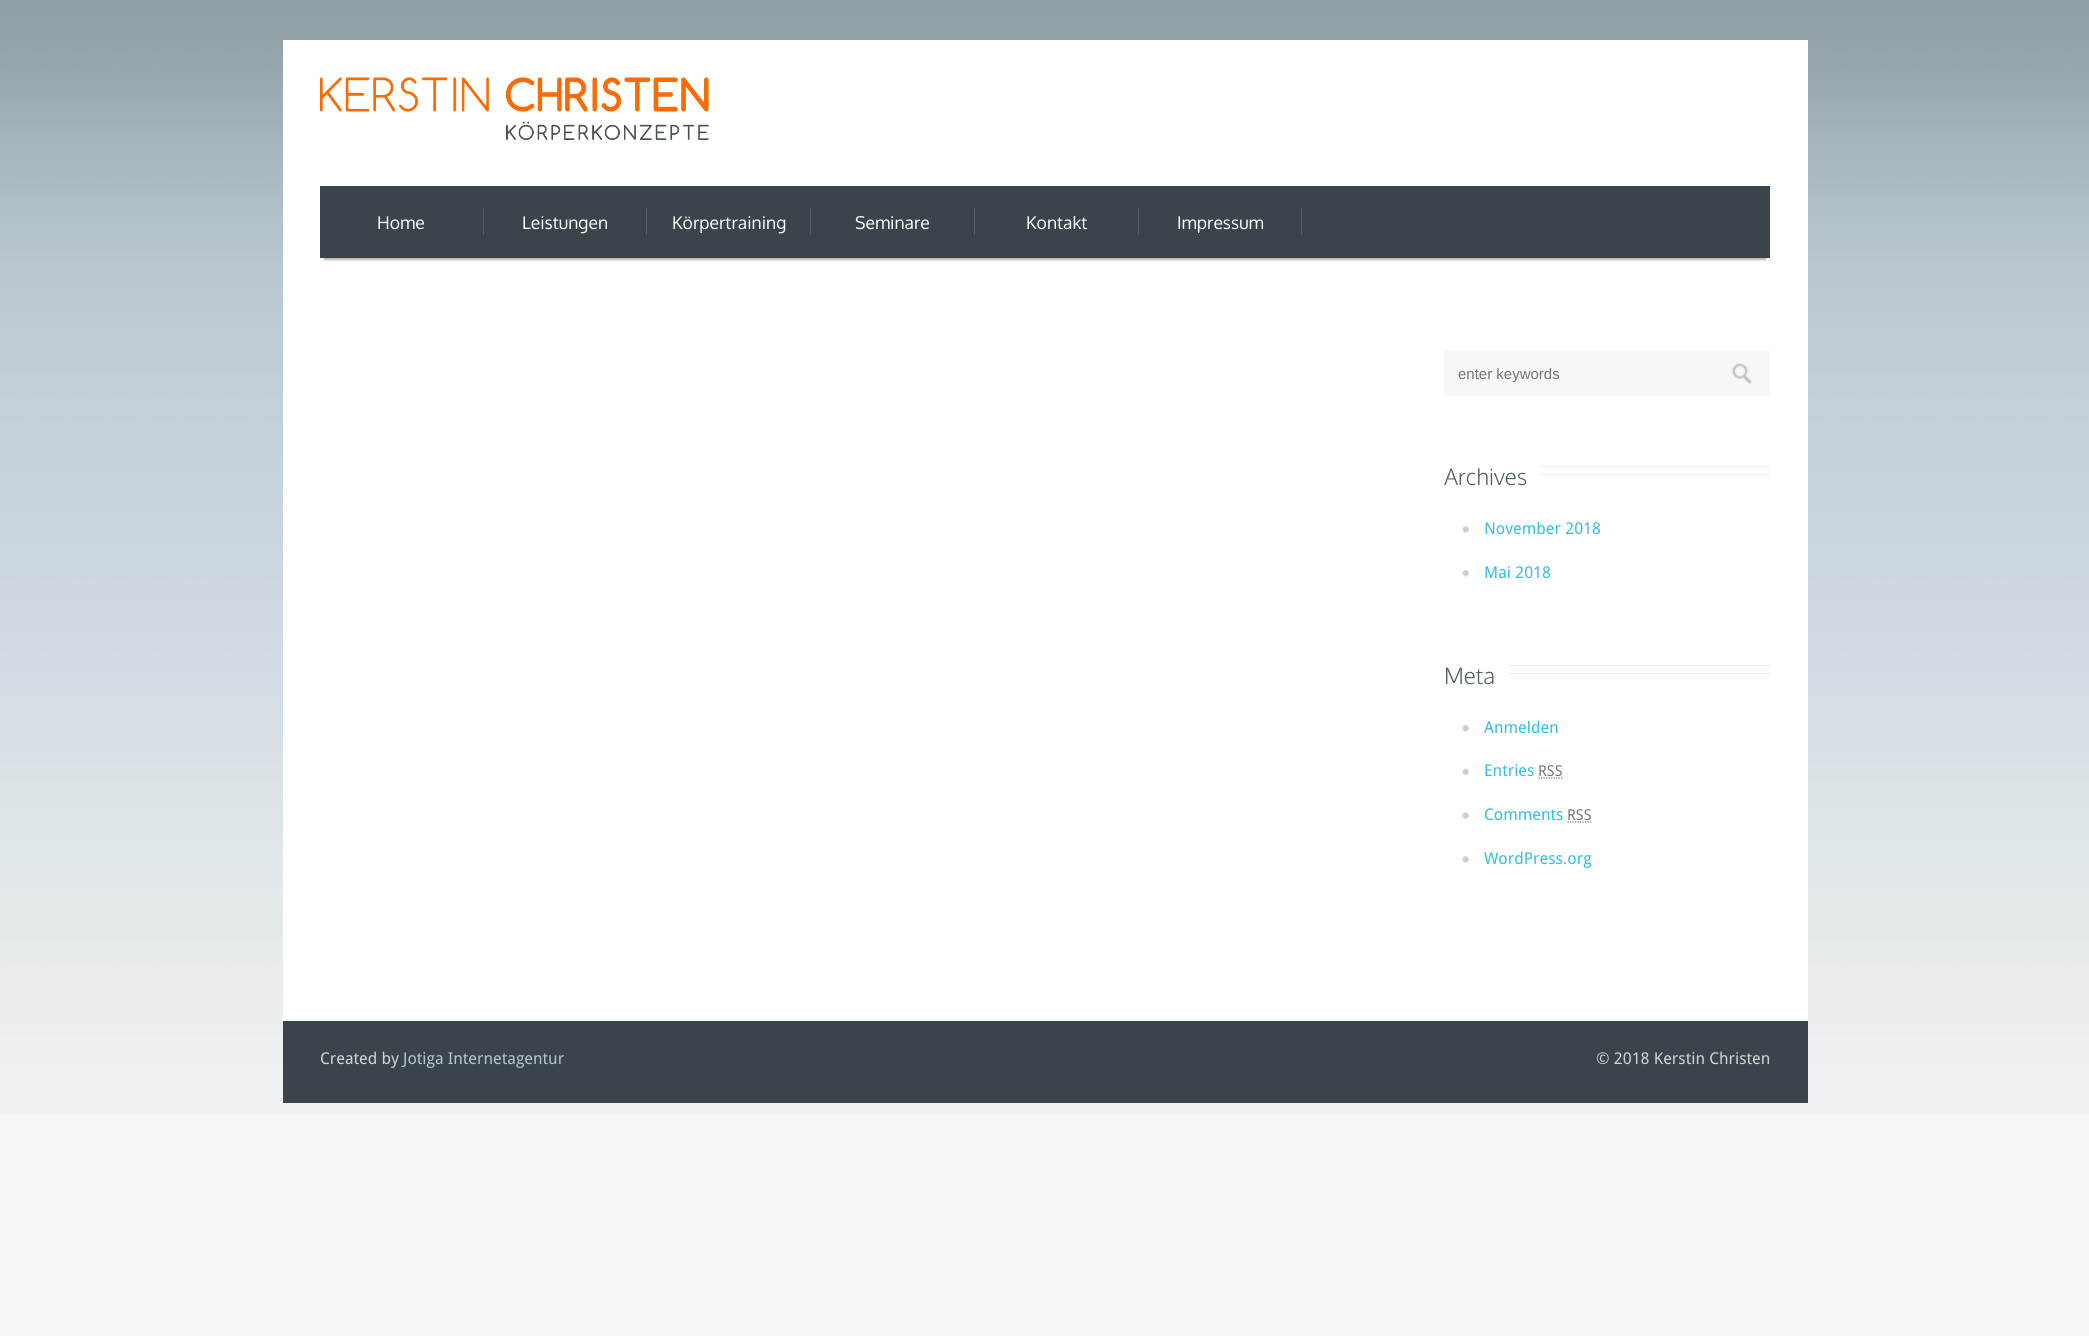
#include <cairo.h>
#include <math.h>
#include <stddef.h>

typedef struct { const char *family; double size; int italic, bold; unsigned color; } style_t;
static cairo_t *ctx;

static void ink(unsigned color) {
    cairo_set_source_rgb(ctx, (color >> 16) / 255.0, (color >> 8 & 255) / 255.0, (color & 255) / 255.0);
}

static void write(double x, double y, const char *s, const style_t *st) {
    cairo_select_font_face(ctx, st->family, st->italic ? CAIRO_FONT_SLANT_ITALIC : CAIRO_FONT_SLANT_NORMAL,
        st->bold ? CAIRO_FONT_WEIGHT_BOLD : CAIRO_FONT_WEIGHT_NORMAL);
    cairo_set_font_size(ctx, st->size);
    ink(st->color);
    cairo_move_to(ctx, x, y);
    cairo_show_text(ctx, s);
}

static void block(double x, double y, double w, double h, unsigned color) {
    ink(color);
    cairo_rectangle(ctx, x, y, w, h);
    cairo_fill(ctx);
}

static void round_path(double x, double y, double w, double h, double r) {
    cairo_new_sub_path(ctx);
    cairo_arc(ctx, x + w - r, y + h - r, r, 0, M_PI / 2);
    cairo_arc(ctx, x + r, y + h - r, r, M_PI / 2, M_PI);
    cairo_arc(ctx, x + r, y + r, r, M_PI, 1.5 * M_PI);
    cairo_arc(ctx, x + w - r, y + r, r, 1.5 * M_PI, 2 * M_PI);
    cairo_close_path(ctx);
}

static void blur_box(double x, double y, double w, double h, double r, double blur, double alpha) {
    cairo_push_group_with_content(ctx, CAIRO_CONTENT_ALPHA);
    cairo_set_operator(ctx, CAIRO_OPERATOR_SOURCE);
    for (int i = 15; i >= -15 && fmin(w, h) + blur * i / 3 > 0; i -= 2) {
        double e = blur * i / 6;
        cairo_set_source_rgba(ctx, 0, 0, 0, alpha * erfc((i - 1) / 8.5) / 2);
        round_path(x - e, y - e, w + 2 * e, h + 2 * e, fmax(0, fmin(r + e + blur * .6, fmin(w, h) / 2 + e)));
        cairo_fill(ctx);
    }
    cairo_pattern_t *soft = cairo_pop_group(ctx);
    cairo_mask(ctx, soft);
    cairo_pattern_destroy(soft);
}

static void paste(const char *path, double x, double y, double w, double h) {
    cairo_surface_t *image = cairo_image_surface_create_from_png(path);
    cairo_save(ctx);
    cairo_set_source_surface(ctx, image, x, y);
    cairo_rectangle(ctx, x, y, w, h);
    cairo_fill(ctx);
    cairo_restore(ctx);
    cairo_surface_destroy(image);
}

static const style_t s1 = {"Oxygen", 17.5, 0, 0, 0xffffff};
static const style_t s2 = {"Liberation Sans", 15, 0, 0, 0x757575};
static const style_t s3 = {"Oxygen Light", 22.5, 0, 0, 0x4e5c64};
static const style_t s4 = {"Droid Sans", 16.25, 0, 0, 0x33bee5};
static const style_t s5 = {"Droid Sans", 15, 0, 0, 0x727a7e};
static const style_t s6 = {"Droid Sans", 16.25, 0, 0, 0xd1d3d4};
static const style_t s7 = {"Droid Sans", 16.25, 0, 0, 0xb6c4cb};

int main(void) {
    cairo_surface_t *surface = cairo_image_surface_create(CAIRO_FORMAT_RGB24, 2089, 1336);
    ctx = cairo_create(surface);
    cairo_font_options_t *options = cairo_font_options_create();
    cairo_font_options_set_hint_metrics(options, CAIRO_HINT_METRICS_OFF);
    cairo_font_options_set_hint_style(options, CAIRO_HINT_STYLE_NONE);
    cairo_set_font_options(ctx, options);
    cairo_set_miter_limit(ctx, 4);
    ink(0xf5f5f5);
    cairo_paint(ctx);
    paste("pic1.png", 0, 0, 2089, 1114);
    block(283, 40, 1525, 981, 0xffffff);
    paste("pic2.png", 320, 77, 389, 63);
    ink(0x000000);
    blur_box(324, 196, 1442, 64, 0, 1, 0.3);
    block(320, 186, 1450, 72, 0x3a454b);
    write(377, 229, "Home", &s1);
    block(483, 208, 1, 27, 0x586166);
    write(522, 229, "Leistungen", &s1);
    block(646, 208, 1, 27, 0x586166);
    write(672, 229, "Körpertraining", &s1);
    block(810, 208, 1, 27, 0x586166);
    write(855, 229, "Seminare", &s1);
    block(974, 208, 1, 27, 0x586166);
    write(1026, 229, "Kontakt", &s1);
    block(1138, 208, 1, 27, 0x586166);
    write(1177, 229, "Impressum", &s1);
    block(1301, 208, 1, 27, 0x586166);
    block(1444, 351, 326, 45, 0xf7f7f8);
    write(1458, 379, "enter keywords", &s2);
    paste("pic3.png", 1732, 363, 20, 21);
    write(1444, 485, "Archives", &s3);
    block(1540, 466, 230, 1, 0xededed);
    block(1540, 474, 230, 1, 0xededed);
    paste("pic4.png", 1462, 526, 7, 7);
    write(1484, 534, "November 2018", &s4);
    paste("pic5.png", 1462, 570, 7, 7);
    write(1484, 578, "Mai 2018", &s4);
    write(1444, 684, "Meta", &s3);
    block(1508, 665, 262, 1, 0xededed);
    block(1508, 673, 262, 1, 0xededed);
    paste("pic5.png", 1462, 725, 7, 7);
    write(1484, 733, "Anmelden", &s4);
    paste("pic6.png", 1462, 768, 7, 7);
    write(1484, 776, "Entries", &s4);
    write(1538, 776, "RSS", &s5);
    cairo_new_path(ctx);
    cairo_move_to(ctx, 1538.5, 778);
    cairo_line_to(ctx, 1563, 778);
    cairo_set_line_width(ctx, 1.2);
    cairo_set_dash(ctx, (double[]){1.25, 1.25}, 2, 0);
    cairo_stroke(ctx);
    paste("pic7.png", 1462, 812, 7, 7);
    write(1484, 820, "Comments", &s4);
    write(1567, 820, "RSS", &s5);
    cairo_new_path(ctx);
    cairo_move_to(ctx, 1567.5, 822);
    cairo_line_to(ctx, 1592, 822);
    cairo_stroke(ctx);
    paste("pic4.png", 1462, 856, 7, 7);
    write(1484, 864, "WordPress.org", &s4);
    block(283, 1021, 1525, 82, 0x3a454b);
    write(320, 1064, "Created by", &s6);
    write(403, 1064, "Jotiga Internetagentur", &s7);
    write(1596, 1064, "© 2018 Kerstin Christen", &s6);
    cairo_surface_write_to_png(surface, "screenshot.png");
    cairo_font_options_destroy(options);
    cairo_destroy(ctx);
    cairo_surface_destroy(surface);
    return 0;
}
